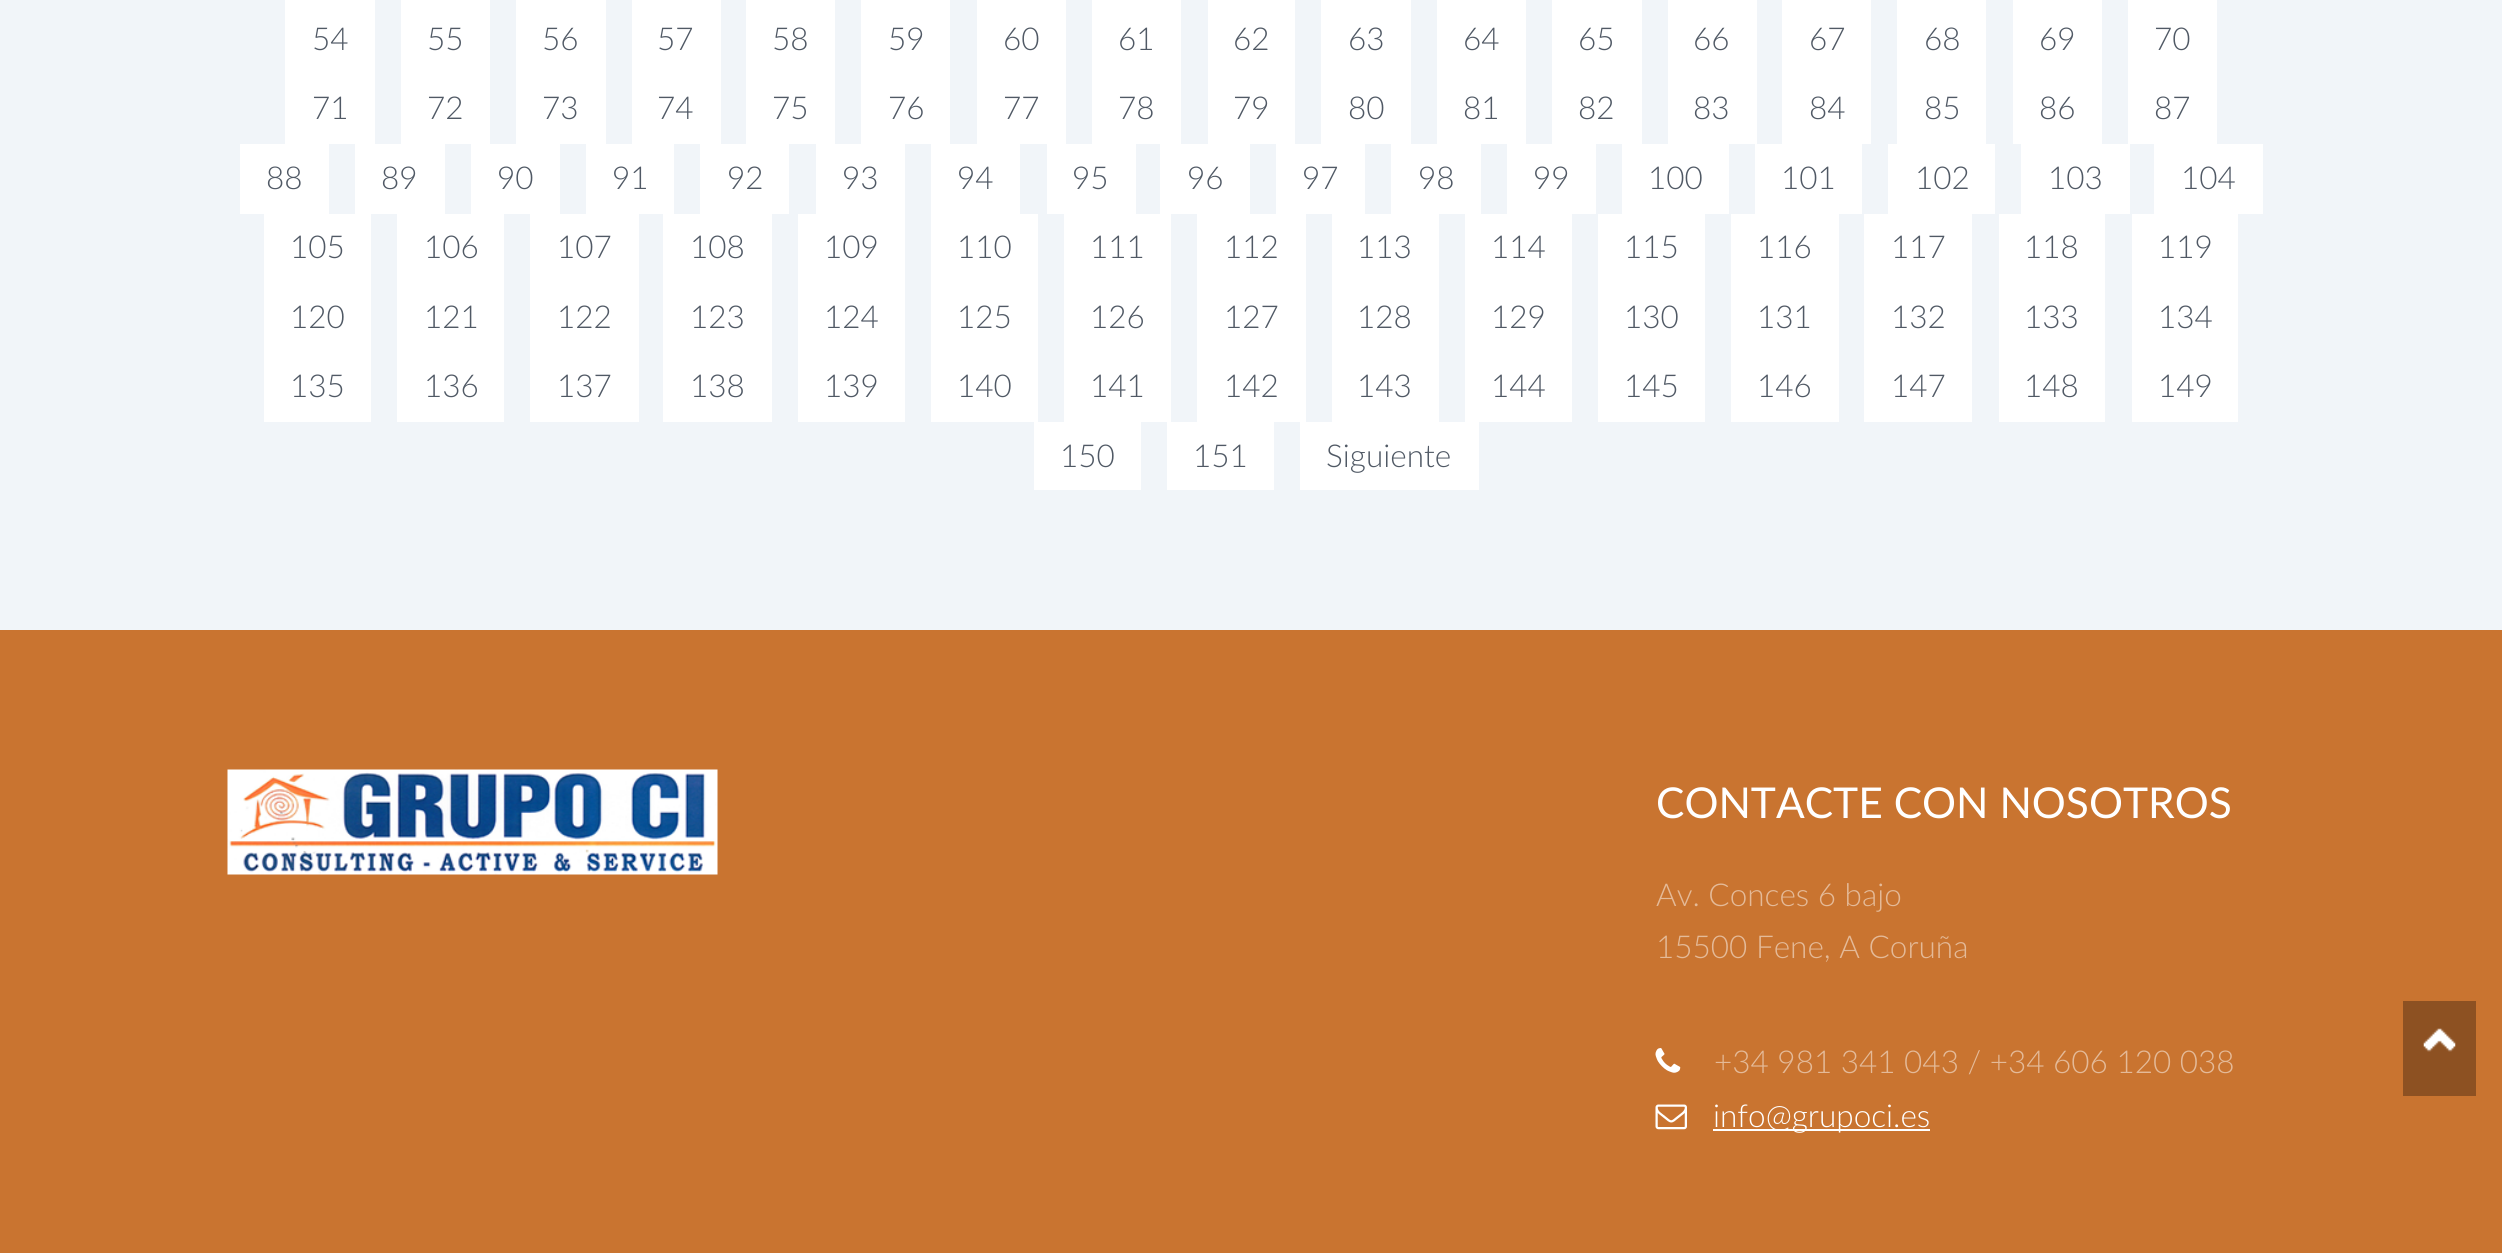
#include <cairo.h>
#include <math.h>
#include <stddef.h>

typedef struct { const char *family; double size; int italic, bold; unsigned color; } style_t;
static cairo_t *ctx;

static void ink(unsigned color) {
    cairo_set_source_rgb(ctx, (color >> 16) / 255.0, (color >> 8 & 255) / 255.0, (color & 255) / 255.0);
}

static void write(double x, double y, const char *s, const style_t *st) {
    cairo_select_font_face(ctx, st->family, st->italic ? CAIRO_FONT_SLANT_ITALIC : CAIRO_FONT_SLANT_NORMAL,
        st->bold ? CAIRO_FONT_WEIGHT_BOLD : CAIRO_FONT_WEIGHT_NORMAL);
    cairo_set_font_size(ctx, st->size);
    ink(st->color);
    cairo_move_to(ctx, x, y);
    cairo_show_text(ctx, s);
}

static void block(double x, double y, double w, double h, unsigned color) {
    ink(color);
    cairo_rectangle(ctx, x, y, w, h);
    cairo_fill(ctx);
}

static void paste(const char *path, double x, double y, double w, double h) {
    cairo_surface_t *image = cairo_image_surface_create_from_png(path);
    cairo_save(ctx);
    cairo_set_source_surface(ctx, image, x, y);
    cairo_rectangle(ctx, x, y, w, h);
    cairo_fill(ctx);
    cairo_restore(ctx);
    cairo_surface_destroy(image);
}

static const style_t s1 = {"Lato Light", 31.5, 0, 0, 0x505965};
static const style_t s2 = {"Lato", 42.5, 0, 0, 0xffffff};
static const style_t s3 = {"Lato Light", 31.5, 0, 0, 0xe4ba98};
static const style_t s4 = {"Lato Light", 31.5, 0, 0, 0xffffff};

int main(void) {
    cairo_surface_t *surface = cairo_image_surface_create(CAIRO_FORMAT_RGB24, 2502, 1253);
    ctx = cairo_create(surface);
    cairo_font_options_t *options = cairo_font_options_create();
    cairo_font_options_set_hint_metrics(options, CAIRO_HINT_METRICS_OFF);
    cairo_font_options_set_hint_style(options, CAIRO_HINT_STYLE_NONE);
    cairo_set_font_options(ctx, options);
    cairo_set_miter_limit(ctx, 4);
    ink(0xf1f5f9);
    cairo_paint(ctx);
    block(285, 0, 90, 144, 0xffffff);
    block(401, 0, 89, 144, 0xffffff);
    block(516, 0, 90, 144, 0xffffff);
    block(632, 0, 89, 144, 0xffffff);
    block(746, 0, 89, 144, 0xffffff);
    block(861, 0, 89, 144, 0xffffff);
    block(977, 0, 89, 144, 0xffffff);
    block(1092, 0, 89, 144, 0xffffff);
    block(1208, 0, 87, 144, 0xffffff);
    block(1321, 0, 90, 144, 0xffffff);
    block(1437, 0, 89, 144, 0xffffff);
    block(1552, 0, 90, 144, 0xffffff);
    block(1668, 0, 89, 144, 0xffffff);
    block(1782, 0, 89, 144, 0xffffff);
    block(1897, 0, 89, 144, 0xffffff);
    block(2013, 0, 89, 144, 0xffffff);
    block(2128, 0, 89, 144, 0xffffff);
    write(312, 50, "54", &s1);
    write(427, 50, "55", &s1);
    write(542, 50, "56", &s1);
    write(657, 50, "57", &s1);
    write(772, 50, "58", &s1);
    write(888, 50, "59", &s1);
    write(1003, 50, "60", &s1);
    write(1118, 50, "61", &s1);
    write(1233, 50, "62", &s1);
    write(1348, 50, "63", &s1);
    write(1463, 50, "64", &s1);
    write(1578, 50, "65", &s1);
    write(1693, 50, "66", &s1);
    write(1809, 50, "67", &s1);
    write(1924, 50, "68", &s1);
    write(2039, 50, "69", &s1);
    write(2154, 50, "70", &s1);
    write(312, 119, "71", &s1);
    write(427, 119, "72", &s1);
    write(542, 119, "73", &s1);
    write(657, 119, "74", &s1);
    write(772, 119, "75", &s1);
    write(888, 119, "76", &s1);
    write(1003, 119, "77", &s1);
    write(1118, 119, "78", &s1);
    write(1233, 119, "79", &s1);
    write(1348, 119, "80", &s1);
    write(1463, 119, "81", &s1);
    write(1578, 119, "82", &s1);
    write(1693, 119, "83", &s1);
    write(1809, 119, "84", &s1);
    write(1924, 119, "85", &s1);
    write(2039, 119, "86", &s1);
    write(2154, 119, "87", &s1);
    block(240, 144, 89, 70, 0xffffff);
    write(266, 189, "88", &s1);
    block(355, 144, 90, 70, 0xffffff);
    write(381, 189, "89", &s1);
    block(471, 144, 89, 70, 0xffffff);
    write(497, 189, "90", &s1);
    block(586, 144, 88, 70, 0xffffff);
    write(612, 189, "91", &s1);
    block(700, 144, 89, 70, 0xffffff);
    write(727, 189, "92", &s1);
    block(816, 144, 89, 70, 0xffffff);
    write(842, 189, "93", &s1);
    block(931, 144, 89, 70, 0xffffff);
    write(957, 189, "94", &s1);
    block(1047, 144, 89, 70, 0xffffff);
    write(1072, 189, "95", &s1);
    block(1160, 144, 90, 70, 0xffffff);
    write(1187, 189, "96", &s1);
    block(1276, 144, 89, 70, 0xffffff);
    write(1302, 189, "97", &s1);
    block(1391, 144, 90, 70, 0xffffff);
    write(1418, 189, "98", &s1);
    block(1507, 144, 89, 70, 0xffffff);
    write(1533, 189, "99", &s1);
    block(1622, 144, 107, 70, 0xffffff);
    write(1648, 189, "100", &s1);
    block(1755, 144, 107, 70, 0xffffff);
    write(1781, 189, "101", &s1);
    block(1888, 144, 107, 70, 0xffffff);
    write(1915, 189, "102", &s1);
    block(2021, 144, 109, 70, 0xffffff);
    write(2048, 189, "103", &s1);
    block(2154, 144, 109, 70, 0xffffff);
    write(2181, 189, "104", &s1);
    block(264, 214, 107, 208, 0xffffff);
    write(290, 258, "105", &s1);
    block(397, 214, 107, 208, 0xffffff);
    write(424, 258, "106", &s1);
    block(530, 214, 109, 208, 0xffffff);
    write(557, 258, "107", &s1);
    block(663, 214, 109, 208, 0xffffff);
    write(690, 258, "108", &s1);
    block(798, 214, 107, 208, 0xffffff);
    write(824, 258, "109", &s1);
    block(931, 214, 107, 208, 0xffffff);
    write(957, 258, "110", &s1);
    block(1064, 214, 107, 208, 0xffffff);
    write(1090, 258, "111", &s1);
    block(1197, 214, 109, 208, 0xffffff);
    write(1224, 258, "112", &s1);
    block(1332, 214, 107, 208, 0xffffff);
    write(1357, 258, "113", &s1);
    block(1465, 214, 107, 208, 0xffffff);
    write(1491, 258, "114", &s1);
    block(1598, 214, 107, 208, 0xffffff);
    write(1624, 258, "115", &s1);
    block(1731, 214, 108, 208, 0xffffff);
    write(1757, 258, "116", &s1);
    block(1864, 214, 108, 208, 0xffffff);
    write(1891, 258, "117", &s1);
    block(1999, 214, 106, 208, 0xffffff);
    write(2024, 258, "118", &s1);
    block(2132, 214, 106, 208, 0xffffff);
    write(2158, 258, "119", &s1);
    write(290, 328, "120", &s1);
    write(424, 328, "121", &s1);
    write(557, 328, "122", &s1);
    write(690, 328, "123", &s1);
    write(824, 328, "124", &s1);
    write(957, 328, "125", &s1);
    write(1090, 328, "126", &s1);
    write(1224, 328, "127", &s1);
    write(1357, 328, "128", &s1);
    write(1491, 328, "129", &s1);
    write(1624, 328, "130", &s1);
    write(1757, 328, "131", &s1);
    write(1891, 328, "132", &s1);
    write(2024, 328, "133", &s1);
    write(2158, 328, "134", &s1);
    write(290, 397, "135", &s1);
    write(424, 397, "136", &s1);
    write(557, 397, "137", &s1);
    write(690, 397, "138", &s1);
    write(824, 397, "139", &s1);
    write(957, 397, "140", &s1);
    write(1090, 397, "141", &s1);
    write(1224, 397, "142", &s1);
    write(1357, 397, "143", &s1);
    write(1491, 397, "144", &s1);
    write(1624, 397, "145", &s1);
    write(1757, 397, "146", &s1);
    write(1891, 397, "147", &s1);
    write(2024, 397, "148", &s1);
    write(2158, 397, "149", &s1);
    block(1034, 422, 107, 68, 0xffffff);
    write(1060, 467, "150", &s1);
    block(1167, 422, 107, 68, 0xffffff);
    write(1193, 467, "151", &s1);
    block(1300, 422, 179, 68, 0xffffff);
    write(1326, 467, "Siguiente", &s1);
    block(0, 630, 2502, 623, 0xc97430);
    paste("pic1.png", 227, 769, 491, 106);
    write(1656, 818, "CONTACTE CON NOSOTROS", &s2);
    write(1656, 906, "Av. Conces 6 bajo", &s3);
    write(1656, 958, "15500 Fene, A Coruña", &s3);
    paste("pic2.png", 1655, 1048, 26, 25);
    write(1714, 1073, "+34 981 341 043 / +34 606 120 038", &s3);
    paste("pic3.png", 1655, 1104, 32, 26);
    block(1713, 1129, 217, 2, 0xffffff);
    write(1713, 1127, "info@grupoci.es", &s4);
    block(2403, 1001, 73, 95, 0x8d5122);
    paste("pic4.png", 2423, 1028, 33, 24);
    cairo_surface_write_to_png(surface, "screenshot.png");
    cairo_font_options_destroy(options);
    cairo_destroy(ctx);
    cairo_surface_destroy(surface);
    return 0;
}
